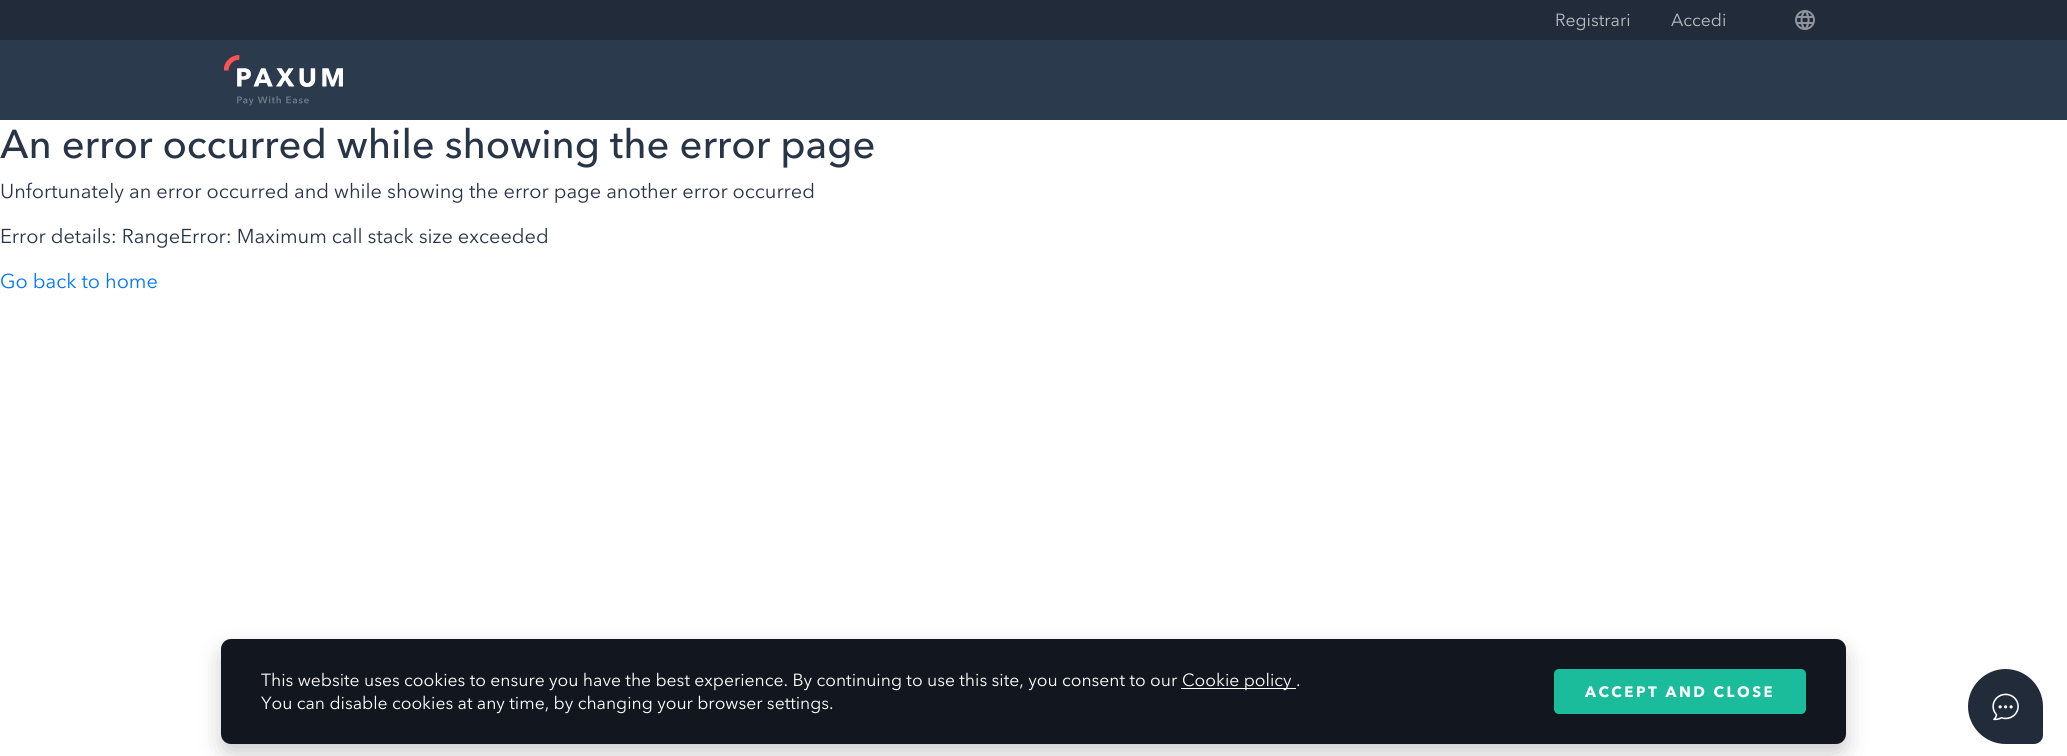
#include <cairo.h>
#include <math.h>
#include <stddef.h>

typedef struct { const char *family; double size; int italic, bold; unsigned color; } style_t;
static cairo_t *ctx;

static void ink(unsigned color) {
    cairo_set_source_rgb(ctx, (color >> 16) / 255.0, (color >> 8 & 255) / 255.0, (color & 255) / 255.0);
}

static void write(double x, double y, const char *s, const style_t *st) {
    cairo_select_font_face(ctx, st->family, st->italic ? CAIRO_FONT_SLANT_ITALIC : CAIRO_FONT_SLANT_NORMAL,
        st->bold ? CAIRO_FONT_WEIGHT_BOLD : CAIRO_FONT_WEIGHT_NORMAL);
    cairo_set_font_size(ctx, st->size);
    ink(st->color);
    cairo_move_to(ctx, x, y);
    cairo_show_text(ctx, s);
}

static void write_spaced(double x, double y, const char *s, double letter, double word) {
    cairo_move_to(ctx, x, y);
    while (*s) {
        char ch[5] = {0};
        int n = 0;
        do ch[n++] = *s++; while ((*s & 0xC0) == 0x80);
        cairo_show_text(ctx, ch);
        cairo_rel_move_to(ctx, letter + word * (*ch == ' '), 0);
    }
}

static void block(double x, double y, double w, double h, unsigned color) {
    ink(color);
    cairo_rectangle(ctx, x, y, w, h);
    cairo_fill(ctx);
}

static void round_path(double x, double y, double w, double h, double r) {
    cairo_new_sub_path(ctx);
    cairo_arc(ctx, x + w - r, y + h - r, r, 0, M_PI / 2);
    cairo_arc(ctx, x + r, y + h - r, r, M_PI / 2, M_PI);
    cairo_arc(ctx, x + r, y + r, r, M_PI, 1.5 * M_PI);
    cairo_arc(ctx, x + w - r, y + r, r, 1.5 * M_PI, 2 * M_PI);
    cairo_close_path(ctx);
}

static void blur_box(double x, double y, double w, double h, double r, double blur, double alpha) {
    cairo_push_group_with_content(ctx, CAIRO_CONTENT_ALPHA);
    cairo_set_operator(ctx, CAIRO_OPERATOR_SOURCE);
    for (int i = 15; i >= -15 && fmin(w, h) + blur * i / 3 > 0; i -= 2) {
        double e = blur * i / 6;
        cairo_set_source_rgba(ctx, 0, 0, 0, alpha * erfc((i - 1) / 8.5) / 2);
        round_path(x - e, y - e, w + 2 * e, h + 2 * e, fmax(0, fmin(r + e + blur * .6, fmin(w, h) / 2 + e)));
        cairo_fill(ctx);
    }
    cairo_pattern_t *soft = cairo_pop_group(ctx);
    cairo_mask(ctx, soft);
    cairo_pattern_destroy(soft);
}

static void paste(const char *path, double x, double y, double w, double h) {
    cairo_surface_t *image = cairo_image_surface_create_from_png(path);
    cairo_save(ctx);
    cairo_set_source_surface(ctx, image, x, y);
    cairo_rectangle(ctx, x, y, w, h);
    cairo_fill(ctx);
    cairo_restore(ctx);
    cairo_surface_destroy(image);
}

static const style_t s1 = {"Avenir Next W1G", 17.5, 0, 0, 0xbbbdc0};
static const style_t s2 = {"Avenir Next W1G Medium", 40, 0, 0, 0x283547};
static const style_t s3 = {"Avenir Next W1G", 20, 0, 0, 0x283547};
static const style_t s4 = {"Avenir Next W1G", 20, 0, 0, 0x0076ff};
static const style_t s5 = {"Avenir Next W1G", 17.5, 0, 0, 0xffffff};

int main(void) {
    cairo_surface_t *surface = cairo_image_surface_create(CAIRO_FORMAT_RGB24, 2067, 756);
    ctx = cairo_create(surface);
    cairo_font_options_t *options = cairo_font_options_create();
    cairo_font_options_set_hint_metrics(options, CAIRO_HINT_METRICS_OFF);
    cairo_font_options_set_hint_style(options, CAIRO_HINT_STYLE_NONE);
    cairo_set_font_options(ctx, options);
    cairo_set_miter_limit(ctx, 4);
    ink(0xffffff);
    cairo_paint(ctx);
    block(0, 40, 2067, 80, 0x2c3a4e);
    block(0, 0, 2067, 40, 0x212b3a);
    write(1555, 26, "Registrari", &s1);
    write(1671, 26, "Accedi", &s1);
    paste("pic1.png", 1795, 10, 20, 20);
    paste("pic2.png", 224, 55, 119, 51);
    write(0, 158, "An error occurred while showing the error page", &s2);
    write(0, 198, "Unfortunately an error occurred and while showing the error page another error occurred", &s3);
    write(0, 243, "Error details: RangeError: Maximum call stack size exceeded", &s3);
    write(0, 288, "Go back to home", &s4);
    ink(0x000000);
    blur_box(221, 649, 1625, 105, 10, 11, 0.2);
    ink(0x12171f);
    round_path(221, 639, 1625, 105, 10);
    cairo_fill(ctx);
    write(261, 686, "This website uses cookies to ensure you have the best experience. By continuing to use this site, you consent to our", &s5);
    block(1181, 688, 115, 1, 0xffffff);
    write(1182, 686, "Cookie policy .", &s5);
    write(261, 709, "You can disable cookies at any time, by changing your browser settings.", &s5);
    ink(0x1bbc9b);
    round_path(1554, 669, 252, 45, 5);
    cairo_fill(ctx);
    round_path(1554.5, 669.5, 251, 44, 4.5);
    cairo_set_source_rgba(ctx, 0.106, 0.737, 0.608, 0.2);
    cairo_set_line_width(ctx, 1);
    cairo_stroke(ctx);
    cairo_select_font_face(ctx, "Avenir Next W1G", CAIRO_FONT_SLANT_NORMAL, CAIRO_FONT_WEIGHT_BOLD);
    cairo_set_font_size(ctx, 15);
    ink(0xffffff);
    write_spaced(1585, 697, "ACCEPT AND CLOSE", 2.5, 0);
    ink(0x212b3a);
    cairo_new_path(ctx);
    cairo_move_to(ctx, 2005.5, 669);
    cairo_curve_to(ctx, 2026, 669, 2043, 686, 2043, 706.5);
    cairo_line_to(ctx, 2043, 735);
    cairo_curve_to(ctx, 2043, 740, 2039, 744, 2034, 744);
    cairo_line_to(ctx, 2005.5, 744);
    cairo_curve_to(ctx, 1985, 744, 1968, 727, 1968, 706.5);
    cairo_curve_to(ctx, 1968, 686, 1985, 669, 2005.5, 669);
    cairo_close_path(ctx);
    cairo_fill(ctx);
    paste("pic3.png", 1992, 693, 27, 28);
    cairo_surface_write_to_png(surface, "screenshot.png");
    cairo_font_options_destroy(options);
    cairo_destroy(ctx);
    cairo_surface_destroy(surface);
    return 0;
}
